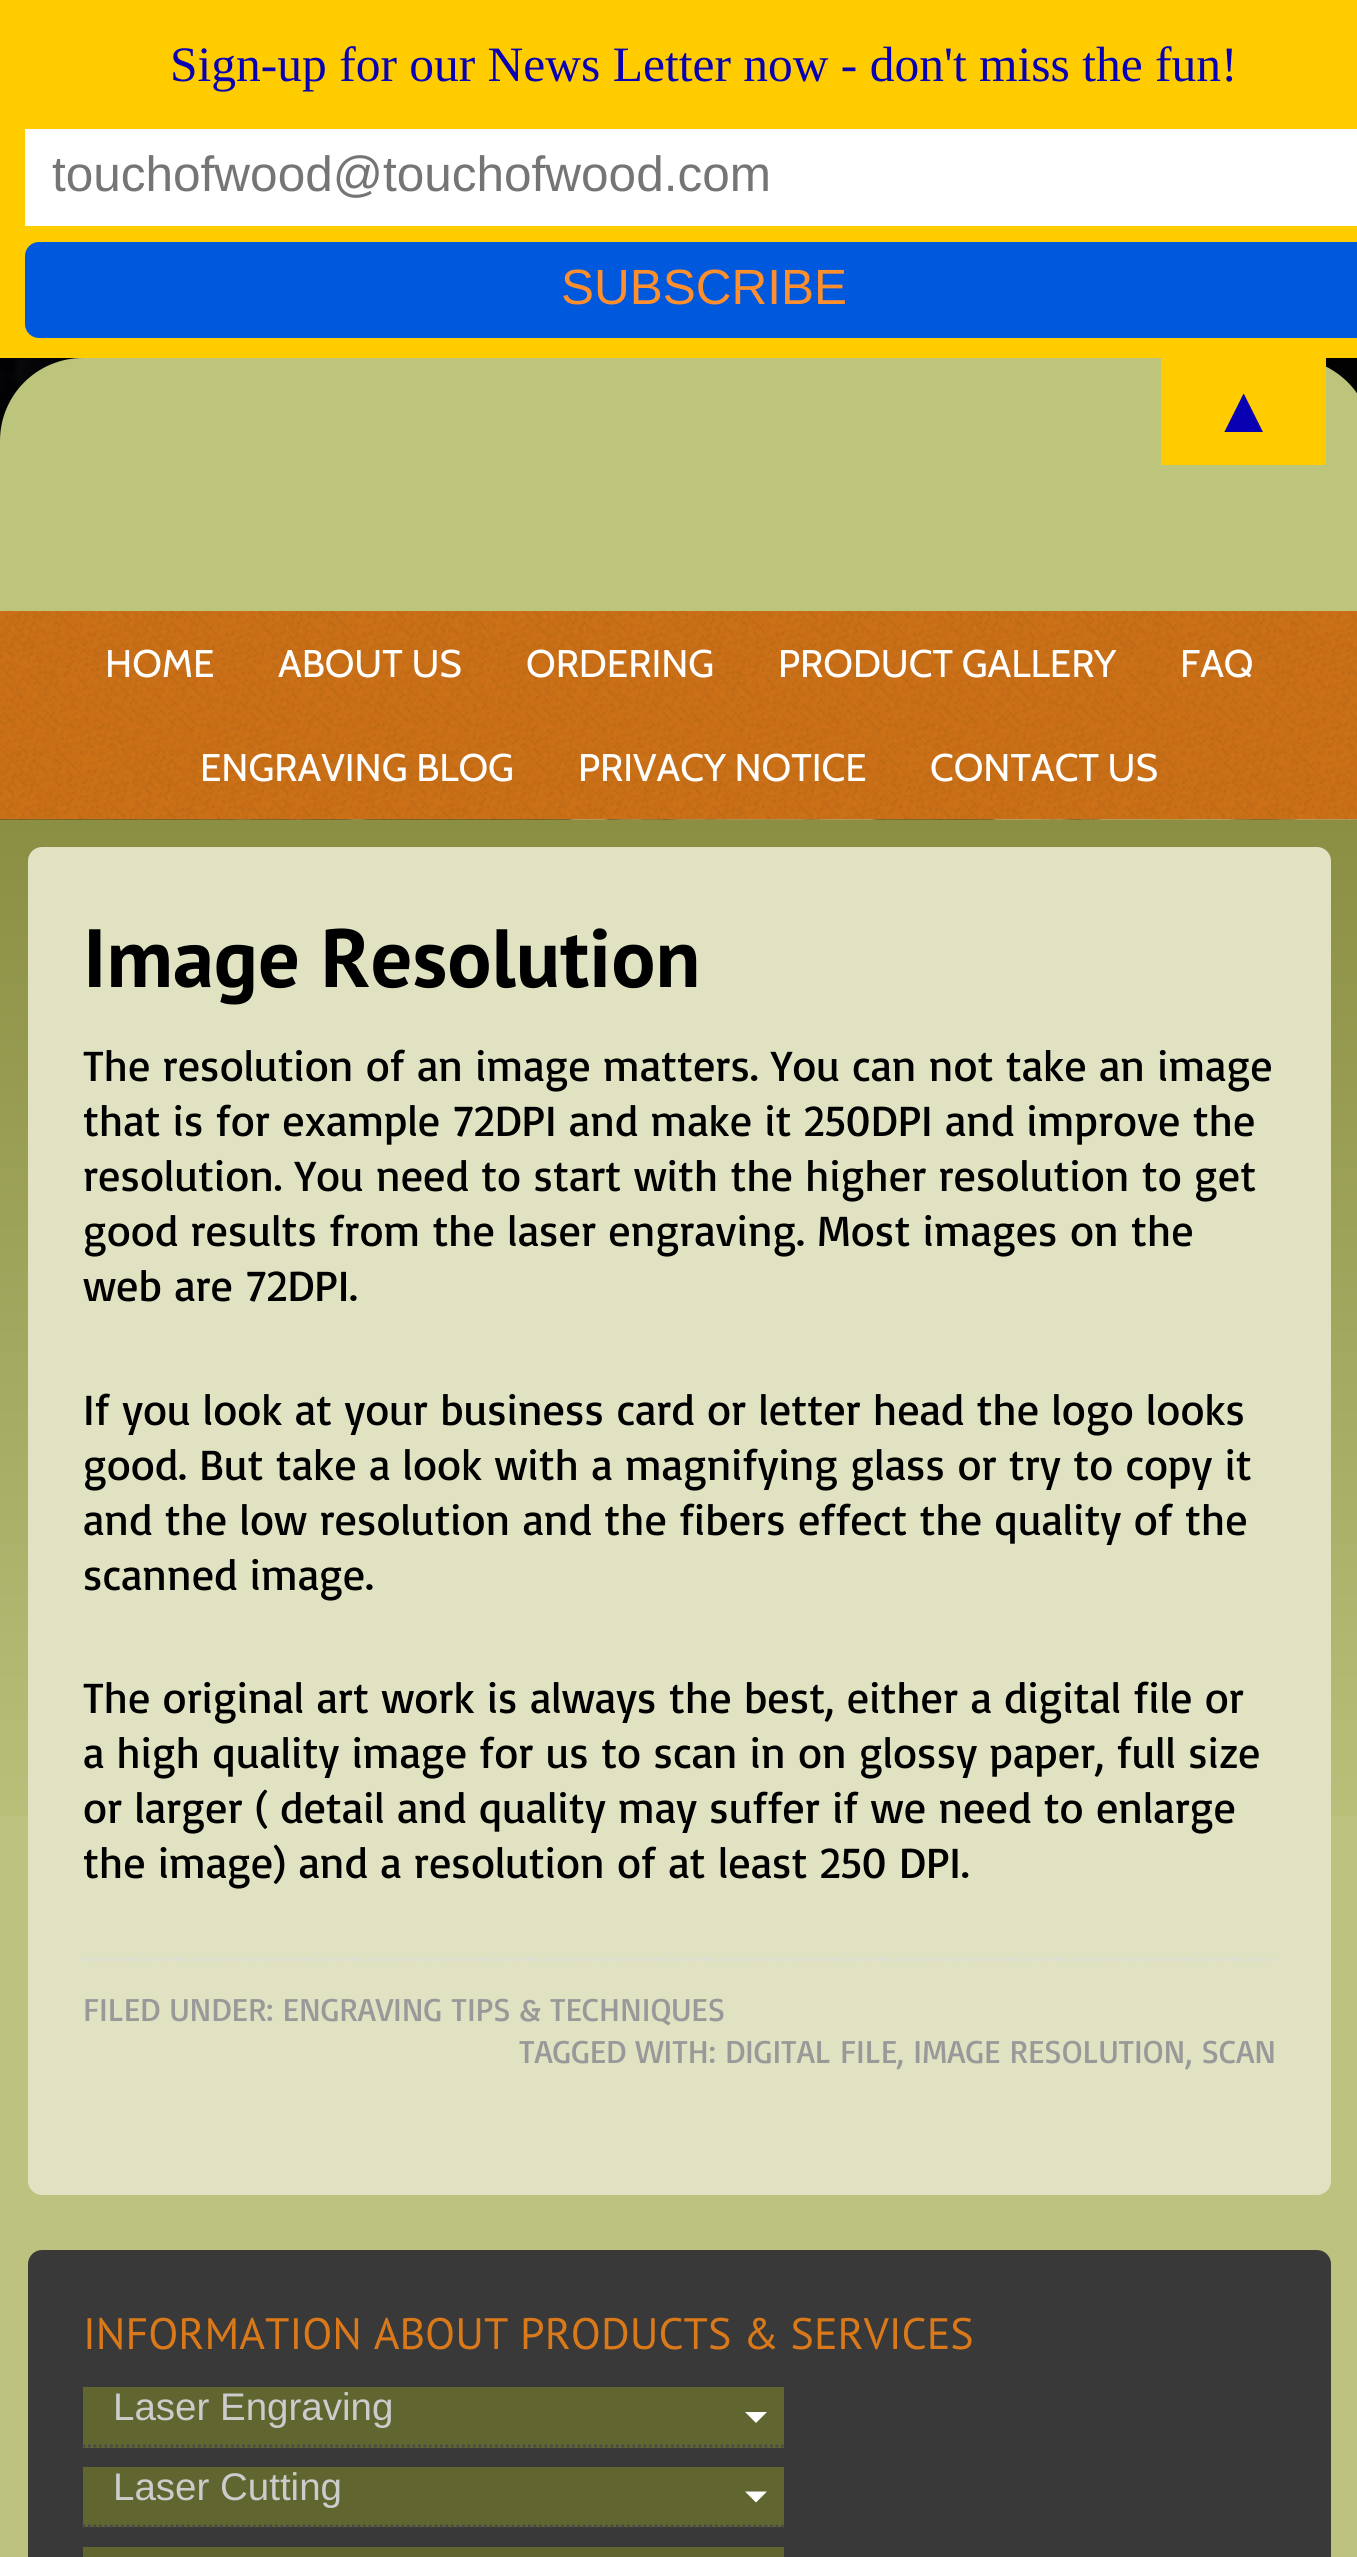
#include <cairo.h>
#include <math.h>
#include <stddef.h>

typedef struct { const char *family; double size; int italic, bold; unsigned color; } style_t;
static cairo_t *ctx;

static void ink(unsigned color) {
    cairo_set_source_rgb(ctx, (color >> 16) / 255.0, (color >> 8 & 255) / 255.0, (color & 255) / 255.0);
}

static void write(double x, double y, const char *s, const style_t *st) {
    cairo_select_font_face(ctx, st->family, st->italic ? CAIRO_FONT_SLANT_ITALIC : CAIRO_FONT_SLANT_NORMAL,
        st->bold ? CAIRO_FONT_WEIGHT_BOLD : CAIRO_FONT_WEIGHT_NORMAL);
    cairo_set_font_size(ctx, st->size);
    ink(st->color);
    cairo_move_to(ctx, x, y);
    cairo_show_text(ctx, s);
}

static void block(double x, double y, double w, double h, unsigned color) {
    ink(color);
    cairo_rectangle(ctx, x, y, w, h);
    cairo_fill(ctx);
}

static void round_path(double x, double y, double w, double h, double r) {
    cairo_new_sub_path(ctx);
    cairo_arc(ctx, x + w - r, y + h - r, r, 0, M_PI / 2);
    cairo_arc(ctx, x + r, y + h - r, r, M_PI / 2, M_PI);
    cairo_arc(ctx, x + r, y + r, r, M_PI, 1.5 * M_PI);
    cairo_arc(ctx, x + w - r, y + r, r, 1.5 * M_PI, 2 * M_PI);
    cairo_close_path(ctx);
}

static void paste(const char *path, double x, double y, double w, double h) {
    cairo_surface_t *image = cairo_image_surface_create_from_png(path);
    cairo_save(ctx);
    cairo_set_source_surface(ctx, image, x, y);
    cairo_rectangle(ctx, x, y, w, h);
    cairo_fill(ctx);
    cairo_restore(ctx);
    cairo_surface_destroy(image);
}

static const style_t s1 = {"Liberation Serif", 49.5, 0, 0, 0x0800b2};
static const style_t s2 = {"Liberation Sans", 49.5, 0, 0, 0x757575};
static const style_t s3 = {"Liberation Sans", 49.5, 0, 0, 0xff8f2d};
static const style_t s4 = {"Liberation Serif", 66, 0, 0, 0x0800b2};
static const style_t s5 = {"Cabin", 38.5, 0, 0, 0xffffff};
static const style_t s6 = {"PT Sans", 82.5, 0, 1, 0x000000};
static const style_t s7 = {"Basic", 44, 0, 0, 0x000000};
static const style_t s8 = {"Basic", 33, 0, 0, 0x999999};
static const style_t s9 = {"PT Sans", 44, 0, 0, 0xda791a};
static const style_t s10 = {"Liberation Sans", 38.5, 0, 0, 0xcccccc};

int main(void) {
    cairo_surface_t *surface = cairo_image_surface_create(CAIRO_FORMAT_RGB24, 1357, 2557);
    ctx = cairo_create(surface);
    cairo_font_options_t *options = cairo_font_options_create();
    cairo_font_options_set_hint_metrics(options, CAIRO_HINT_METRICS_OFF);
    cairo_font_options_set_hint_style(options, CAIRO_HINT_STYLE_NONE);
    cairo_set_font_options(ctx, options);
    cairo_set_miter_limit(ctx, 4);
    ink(0xffffff);
    cairo_paint(ctx);
    paste("pic1.png", 0, 358, 1357, 462);
    block(0, 0, 1357, 358, 0xffcc00);
    write(170, 81, "Sign-up for our News Letter now - don't miss the fun!", &s1);
    block(25, 129, 1332, 97, 0xffffff);
    write(52, 191, "touchofwood@touchofwood.com", &s2);
    ink(0x0058dd);
    round_path(26.5, 243.5, 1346, 93, 12.5);
    cairo_fill_preserve(ctx);
    cairo_set_line_width(ctx, 3);
    cairo_stroke(ctx);
    write(561, 304, "SUBSCRIBE", &s3);
    ink(0xbdc57c);
    cairo_new_path(ctx);
    cairo_move_to(ctx, 83, 358);
    cairo_line_to(ctx, 1289, 358);
    cairo_curve_to(ctx, 1335, 358, 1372, 395, 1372, 441);
    cairo_line_to(ctx, 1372, 611);
    cairo_line_to(ctx, 0, 611);
    cairo_line_to(ctx, 0, 441);
    cairo_curve_to(ctx, 0, 395, 37, 358, 83, 358);
    cairo_close_path(ctx);
    cairo_fill(ctx);
    block(1161, 358, 165, 107, 0xffcc00);
    write(1211, 432, "▲", &s4);
    paste("pic2.png", 0, 611, 1357, 209);
    write(105, 677, "HOME", &s5);
    write(278, 677, "ABOUT US", &s5);
    write(526, 677, "ORDERING", &s5);
    write(778, 677, "PRODUCT GALLERY", &s5);
    write(1180, 677, "FAQ", &s5);
    write(200, 781, "ENGRAVING BLOG", &s5);
    write(578, 781, "PRIVACY NOTICE", &s5);
    write(930, 781, "CONTACT US", &s5);
    block(0, 1816, 1357, 741, 0xbdc37e);
    paste("pic3.png", 0, 819, 1357, 997);
    ink(0xe0e2c2);
    round_path(28, 847, 1303, 1348, 14);
    cairo_fill(ctx);
    write(83, 987, "Image Resolution", &s6);
    write(83, 1081, "The resolution of an image matters. You can not take an image", &s7);
    write(83, 1136, "that is for example 72DPI and make it 250DPI and improve the", &s7);
    write(83, 1191, "resolution. You need to start with the higher resolution to get", &s7);
    write(83, 1246, "good results from the laser engraving. Most images on the", &s7);
    write(83, 1301, "web are 72DPI.", &s7);
    write(83, 1425, "If you look at your business card or letter head the logo looks", &s7);
    write(83, 1480, "good. But take a look with a magnifying glass or try to copy it", &s7);
    write(83, 1535, "and the low resolution and the fibers effect the quality of the", &s7);
    write(83, 1590, "scanned image.", &s7);
    write(83, 1713, "The original art work is always the best, either a digital file or", &s7);
    write(83, 1768, "a high quality image for us to scan in on glossy paper, full size", &s7);
    write(83, 1823, "or larger ( detail and quality may suffer if we need to enlarge", &s7);
    write(83, 1878, "the image) and a resolution of at least 250 DPI.", &s7);
    cairo_new_path(ctx);
    cairo_move_to(ctx, 82.5, 1959.5);
    cairo_line_to(ctx, 1276, 1959.5);
    ink(0xdddddd);
    cairo_set_line_width(ctx, 2.8);
    cairo_set_dash(ctx, (double[]){2.75, 2.75}, 2, 0);
    cairo_stroke(ctx);
    write(83, 2021, "FILED UNDER: ENGRAVING TIPS & TECHNIQUES", &s8);
    write(519, 2063, "TAGGED WITH: DIGITAL FILE, IMAGE RESOLUTION, SCAN", &s8);
    ink(0x393939);
    round_path(28, 2250, 1303, 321, 14);
    cairo_fill(ctx);
    write(83, 2349, "INFORMATION ABOUT PRODUCTS & SERVICES", &s9);
    block(83, 2387, 701, 61, 0x616530);
    cairo_new_path(ctx);
    cairo_move_to(ctx, 82.5, 2446);
    cairo_line_to(ctx, 784, 2446);
    ink(0x494949);
    cairo_stroke(ctx);
    write(113, 2420, "Laser Engraving", &s10);
    ink(0xffffff);
    cairo_new_path(ctx);
    cairo_move_to(ctx, 745, 2412);
    cairo_line_to(ctx, 767, 2412);
    cairo_line_to(ctx, 756, 2423);
    cairo_close_path(ctx);
    cairo_fill(ctx);
    block(83, 2467, 701, 60, 0x616530);
    cairo_new_path(ctx);
    cairo_move_to(ctx, 82.5, 2526);
    cairo_line_to(ctx, 784, 2526);
    ink(0x494949);
    cairo_stroke(ctx);
    write(113, 2500, "Laser Cutting", &s10);
    ink(0xffffff);
    cairo_new_path(ctx);
    cairo_move_to(ctx, 745, 2491.5);
    cairo_line_to(ctx, 767, 2491.5);
    cairo_line_to(ctx, 756, 2502.5);
    cairo_close_path(ctx);
    cairo_fill(ctx);
    block(83, 2547, 701, 10, 0x616530);
    cairo_surface_write_to_png(surface, "screenshot.png");
    cairo_font_options_destroy(options);
    cairo_destroy(ctx);
    cairo_surface_destroy(surface);
    return 0;
}
